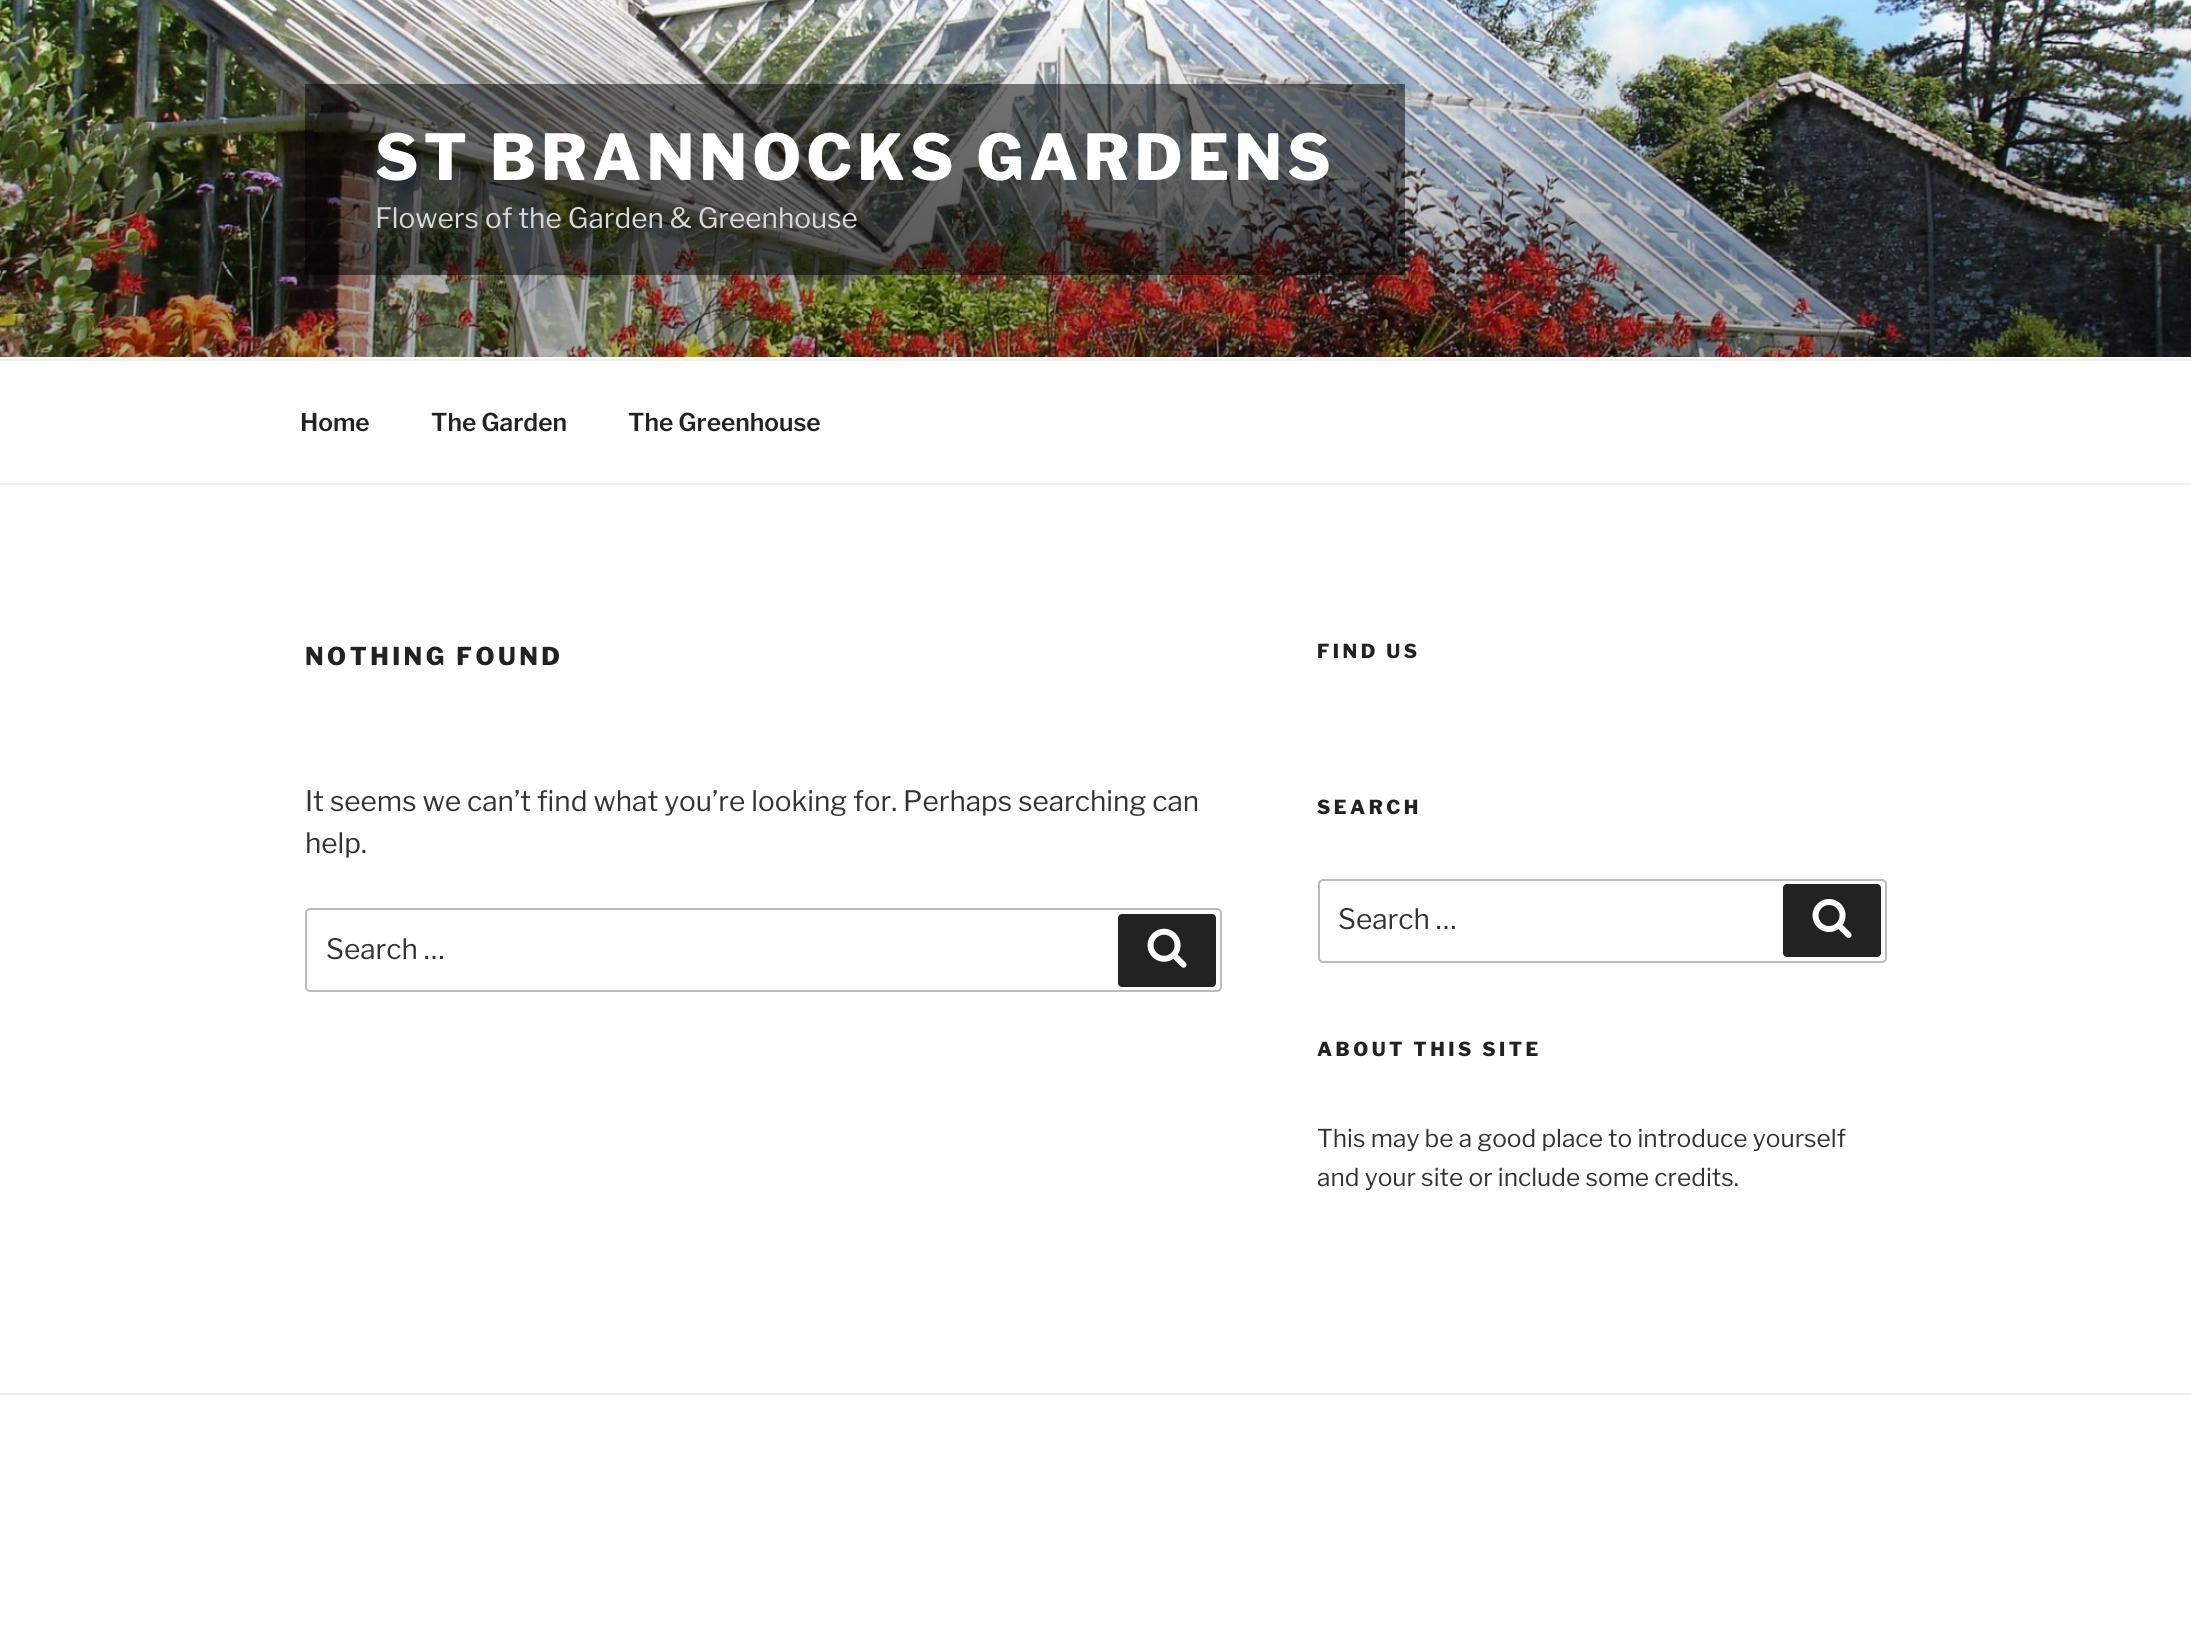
#include <cairo.h>
#include <math.h>
#include <stddef.h>

typedef struct { const char *family; double size; int italic, bold; unsigned color; } style_t;
static cairo_t *ctx;

static void ink(unsigned color) {
    cairo_set_source_rgb(ctx, (color >> 16) / 255.0, (color >> 8 & 255) / 255.0, (color & 255) / 255.0);
}

static void write(double x, double y, const char *s, const style_t *st) {
    cairo_select_font_face(ctx, st->family, st->italic ? CAIRO_FONT_SLANT_ITALIC : CAIRO_FONT_SLANT_NORMAL,
        st->bold ? CAIRO_FONT_WEIGHT_BOLD : CAIRO_FONT_WEIGHT_NORMAL);
    cairo_set_font_size(ctx, st->size);
    ink(st->color);
    cairo_move_to(ctx, x, y);
    cairo_show_text(ctx, s);
}

static void write_spaced(double x, double y, const char *s, double letter, double word) {
    cairo_move_to(ctx, x, y);
    while (*s) {
        char ch[5] = {0};
        int n = 0;
        do ch[n++] = *s++; while ((*s & 0xC0) == 0x80);
        cairo_show_text(ctx, ch);
        cairo_rel_move_to(ctx, letter + word * (*ch == ' '), 0);
    }
}

static void block(double x, double y, double w, double h, unsigned color) {
    ink(color);
    cairo_rectangle(ctx, x, y, w, h);
    cairo_fill(ctx);
}

static void round_path(double x, double y, double w, double h, double r) {
    cairo_new_sub_path(ctx);
    cairo_arc(ctx, x + w - r, y + h - r, r, 0, M_PI / 2);
    cairo_arc(ctx, x + r, y + h - r, r, M_PI / 2, M_PI);
    cairo_arc(ctx, x + r, y + r, r, M_PI, 1.5 * M_PI);
    cairo_arc(ctx, x + w - r, y + r, r, 1.5 * M_PI, 2 * M_PI);
    cairo_close_path(ctx);
}

static void paste(const char *path, double x, double y, double w, double h) {
    cairo_surface_t *image = cairo_image_surface_create_from_png(path);
    cairo_save(ctx);
    cairo_set_source_surface(ctx, image, x, y);
    cairo_rectangle(ctx, x, y, w, h);
    cairo_fill(ctx);
    cairo_restore(ctx);
    cairo_surface_destroy(image);
}

static const style_t s1 = {"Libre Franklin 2 Thin", 28, 0, 0, 0xd8d8d7};
static const style_t s2 = {"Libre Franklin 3 Thin", 24.5, 0, 0, 0x222222};
static const style_t s3 = {"Libre Franklin 2 Thin", 28, 0, 0, 0x333333};
static const style_t s4 = {"Libre Franklin 2 Thin", 24.5, 0, 0, 0x333333};

int main(void) {
    cairo_surface_t *surface = cairo_image_surface_create(CAIRO_FORMAT_RGB24, 2191, 1636);
    ctx = cairo_create(surface);
    cairo_font_options_t *options = cairo_font_options_create();
    cairo_font_options_set_hint_metrics(options, CAIRO_HINT_METRICS_OFF);
    cairo_font_options_set_hint_style(options, CAIRO_HINT_STYLE_NONE);
    cairo_set_font_options(ctx, options);
    cairo_set_miter_limit(ctx, 4);
    ink(0xffffff);
    cairo_paint(ctx);
    block(0, 357, 2191, 2, 0xfafafa);
    paste("pic1.png", 0, 0, 2191, 357);
    cairo_set_source_rgba(ctx, 0, 0, 0, 0.5);
    cairo_rectangle(ctx, 305, 84, 1100, 191);
    cairo_fill(ctx);
    cairo_select_font_face(ctx, "Libre Franklin Thin", CAIRO_FONT_SLANT_NORMAL, CAIRO_FONT_WEIGHT_NORMAL);
    cairo_set_font_size(ctx, 63);
    ink(0xffffff);
    write_spaced(375, 180, "ST BRANNOCKS GARDENS", 5, 0);
    write(375, 228, "Flowers of the Garden & Greenhouse", &s1);
    block(0, 359, 2191, 2, 0xeeeeee);
    block(0, 483, 2191, 2, 0xeeeeee);
    write(300, 431, "Home", &s2);
    write(431, 431, "The Garden", &s2);
    write(628, 431, "The Greenhouse", &s2);
    cairo_select_font_face(ctx, "Libre Franklin Thin", CAIRO_FONT_SLANT_NORMAL, CAIRO_FONT_WEIGHT_NORMAL);
    write_spaced(305, 665, "NOTHING FOUND", 3.5, 0);
    write(305, 811, "It seems we can’t find what you’re looking for. Perhaps searching can", &s3);
    write(305, 853, "help.", &s3);
    round_path(306, 909, 915, 82, 4);
    ink(0xbbbbbb);
    cairo_stroke(ctx);
    write(326, 959, "Search …", &s3);
    ink(0x222222);
    round_path(1118, 914, 98, 73, 4);
    cairo_fill(ctx);
    paste("pic2.png", 1147, 928, 40, 40);
    cairo_select_font_face(ctx, "Libre Franklin Thin", CAIRO_FONT_SLANT_NORMAL, CAIRO_FONT_WEIGHT_NORMAL);
    cairo_set_font_size(ctx, 19.25);
    write_spaced(1317, 658, "FIND US", 3.5, 0);
    write_spaced(1317, 814, "SEARCH", 3.5, 0);
    round_path(1319, 880, 567, 82, 4);
    ink(0xbbbbbb);
    cairo_stroke(ctx);
    write(1338, 929, "Search …", &s3);
    ink(0x222222);
    round_path(1783, 884, 98, 73, 4);
    cairo_fill(ctx);
    paste("pic3.png", 1812, 899, 40, 39);
    cairo_select_font_face(ctx, "Libre Franklin Thin", CAIRO_FONT_SLANT_NORMAL, CAIRO_FONT_WEIGHT_NORMAL);
    cairo_set_font_size(ctx, 19.25);
    write_spaced(1317, 1056, "ABOUT THIS SITE", 3.5, 0);
    write(1317, 1147, "This may be a good place to introduce yourself", &s4);
    write(1317, 1186, "and your site or include some credits.", &s4);
    block(0, 1393, 2191, 2, 0xeeeeee);
    cairo_surface_write_to_png(surface, "screenshot.png");
    cairo_font_options_destroy(options);
    cairo_destroy(ctx);
    cairo_surface_destroy(surface);
    return 0;
}
